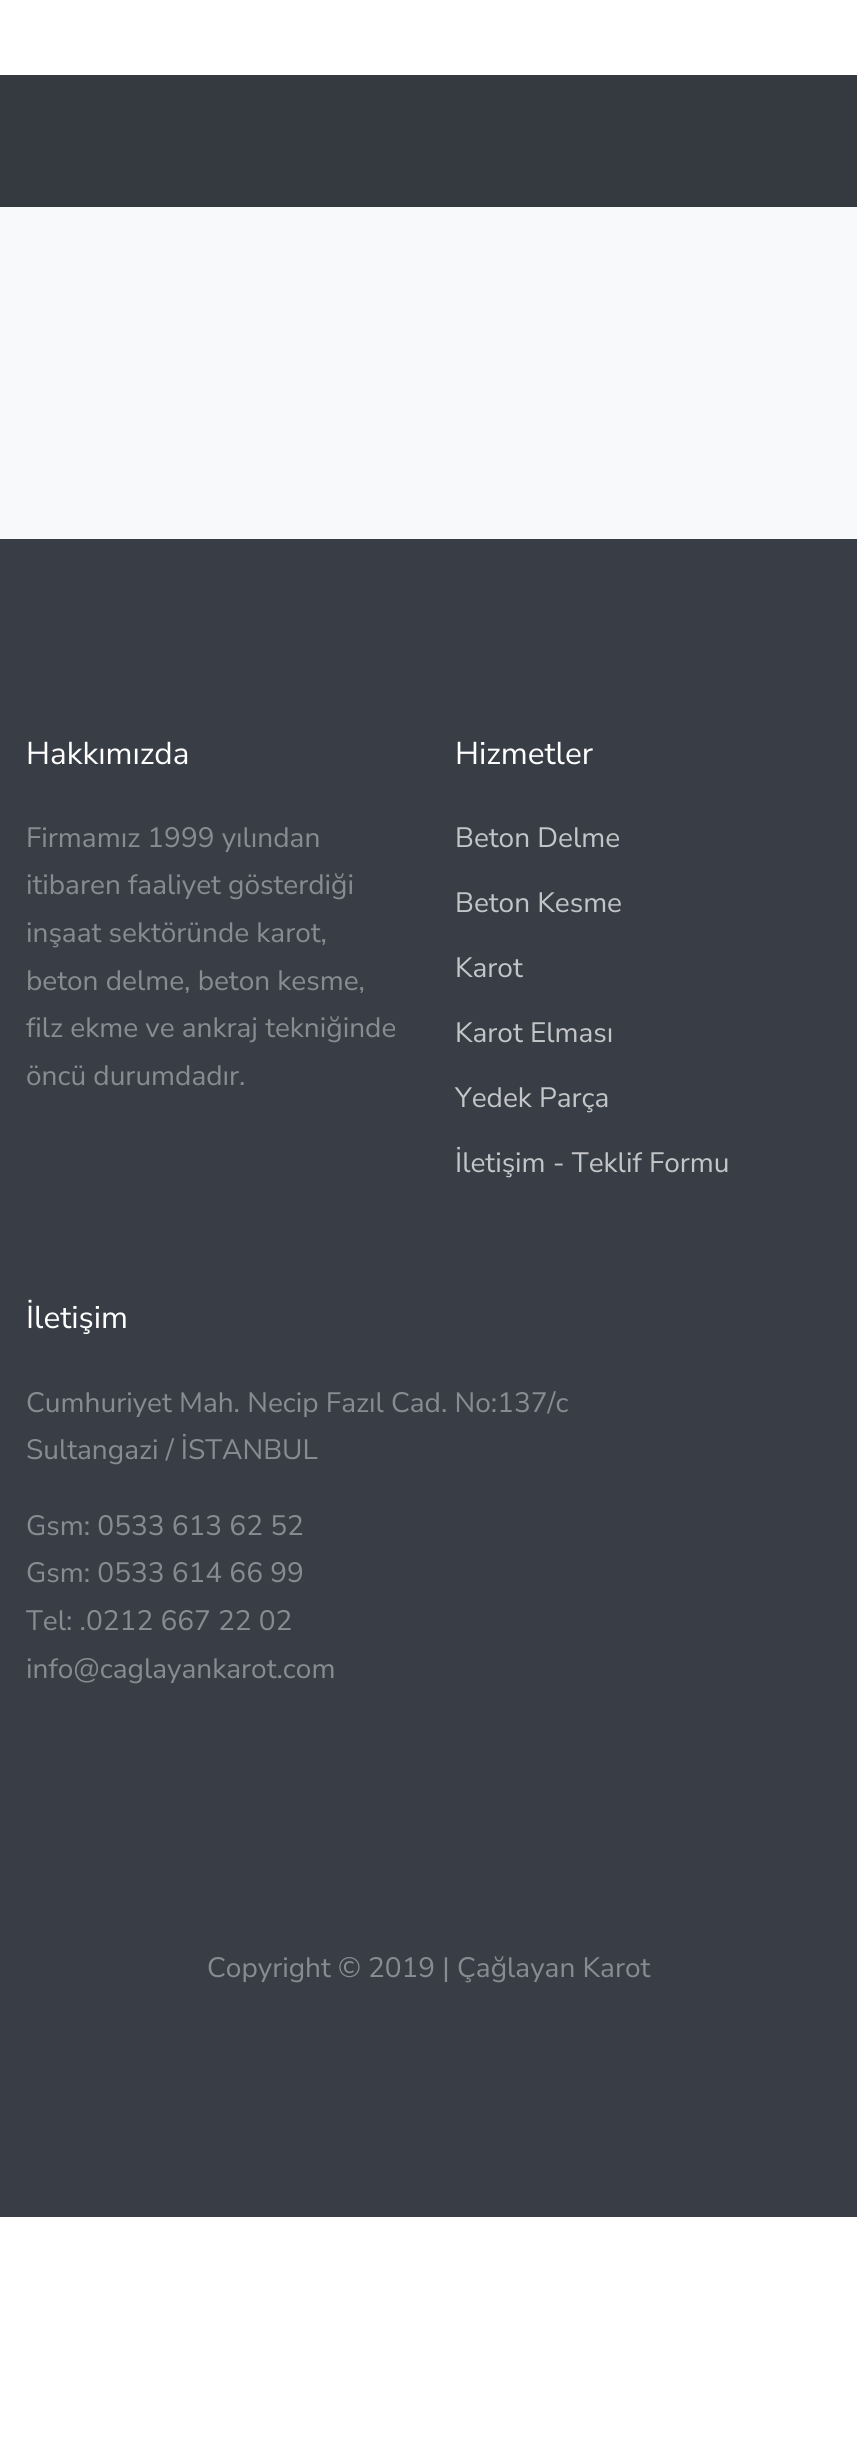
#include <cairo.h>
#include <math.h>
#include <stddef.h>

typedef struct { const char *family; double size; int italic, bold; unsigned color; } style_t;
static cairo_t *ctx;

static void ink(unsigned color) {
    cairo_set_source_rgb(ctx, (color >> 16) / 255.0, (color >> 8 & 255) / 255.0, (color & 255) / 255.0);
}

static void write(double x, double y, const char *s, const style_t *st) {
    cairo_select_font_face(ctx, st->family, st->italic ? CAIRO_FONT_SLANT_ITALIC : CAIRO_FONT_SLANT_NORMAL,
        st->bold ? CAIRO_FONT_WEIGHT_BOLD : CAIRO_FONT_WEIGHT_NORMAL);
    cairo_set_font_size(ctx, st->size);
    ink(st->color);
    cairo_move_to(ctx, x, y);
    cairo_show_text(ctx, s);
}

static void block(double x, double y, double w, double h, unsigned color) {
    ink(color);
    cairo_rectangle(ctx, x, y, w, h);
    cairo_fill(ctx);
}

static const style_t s1 = {"Nunito Sans", 31.5, 0, 0, 0xffffff};
static const style_t s2 = {"Nunito Sans", 28, 0, 0, 0x888b90};
static const style_t s3 = {"Nunito Sans", 28, 0, 0, 0xc4c5c8};

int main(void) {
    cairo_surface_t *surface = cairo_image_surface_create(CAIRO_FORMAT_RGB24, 857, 2456);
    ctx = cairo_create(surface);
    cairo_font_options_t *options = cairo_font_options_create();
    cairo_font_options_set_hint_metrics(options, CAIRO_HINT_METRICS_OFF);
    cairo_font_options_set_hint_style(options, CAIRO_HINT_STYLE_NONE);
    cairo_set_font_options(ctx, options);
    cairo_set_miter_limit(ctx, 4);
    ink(0xffffff);
    cairo_paint(ctx);
    block(0, 75, 857, 132, 0x343a40);
    block(0, 207, 857, 332, 0xf8f9fa);
    block(0, 539, 857, 1678, 0x393e46);
    write(26, 764, "Hakkımızda", &s1);
    write(26, 847, "Firmamız 1999 yılından", &s2);
    write(26, 894, "itibaren faaliyet gösterdiği", &s2);
    write(26, 942, "inşaat sektöründe karot,", &s2);
    write(26, 990, "beton delme, beton kesme,", &s2);
    write(26, 1037, "filz ekme ve ankraj tekniğinde", &s2);
    write(26, 1085, "öncü durumdadır.", &s2);
    write(455, 764, "Hizmetler", &s1);
    write(455, 847, "Beton Delme", &s3);
    write(455, 912, "Beton Kesme", &s3);
    write(455, 977, "Karot", &s3);
    write(455, 1042, "Karot Elması", &s3);
    write(455, 1107, "Yedek Parça", &s3);
    write(455, 1172, "İletişim - Teklif Formu", &s3);
    write(26, 1328, "İletişim", &s1);
    write(26, 1412, "Cumhuriyet Mah. Necip Fazıl Cad. No:137/c", &s2);
    write(26, 1459, "Sultangazi / İSTANBUL", &s2);
    write(26, 1535, "Gsm: 0533 613 62 52", &s2);
    write(26, 1582, "Gsm: 0533 614 66 99", &s2);
    write(26, 1630, "Tel: .0212 667 22 02", &s2);
    write(26, 1678, "info@caglayankarot.com", &s2);
    write(207, 1977, "Copyright © 2019 | Çağlayan Karot", &s2);
    cairo_surface_write_to_png(surface, "screenshot.png");
    cairo_font_options_destroy(options);
    cairo_destroy(ctx);
    cairo_surface_destroy(surface);
    return 0;
}
